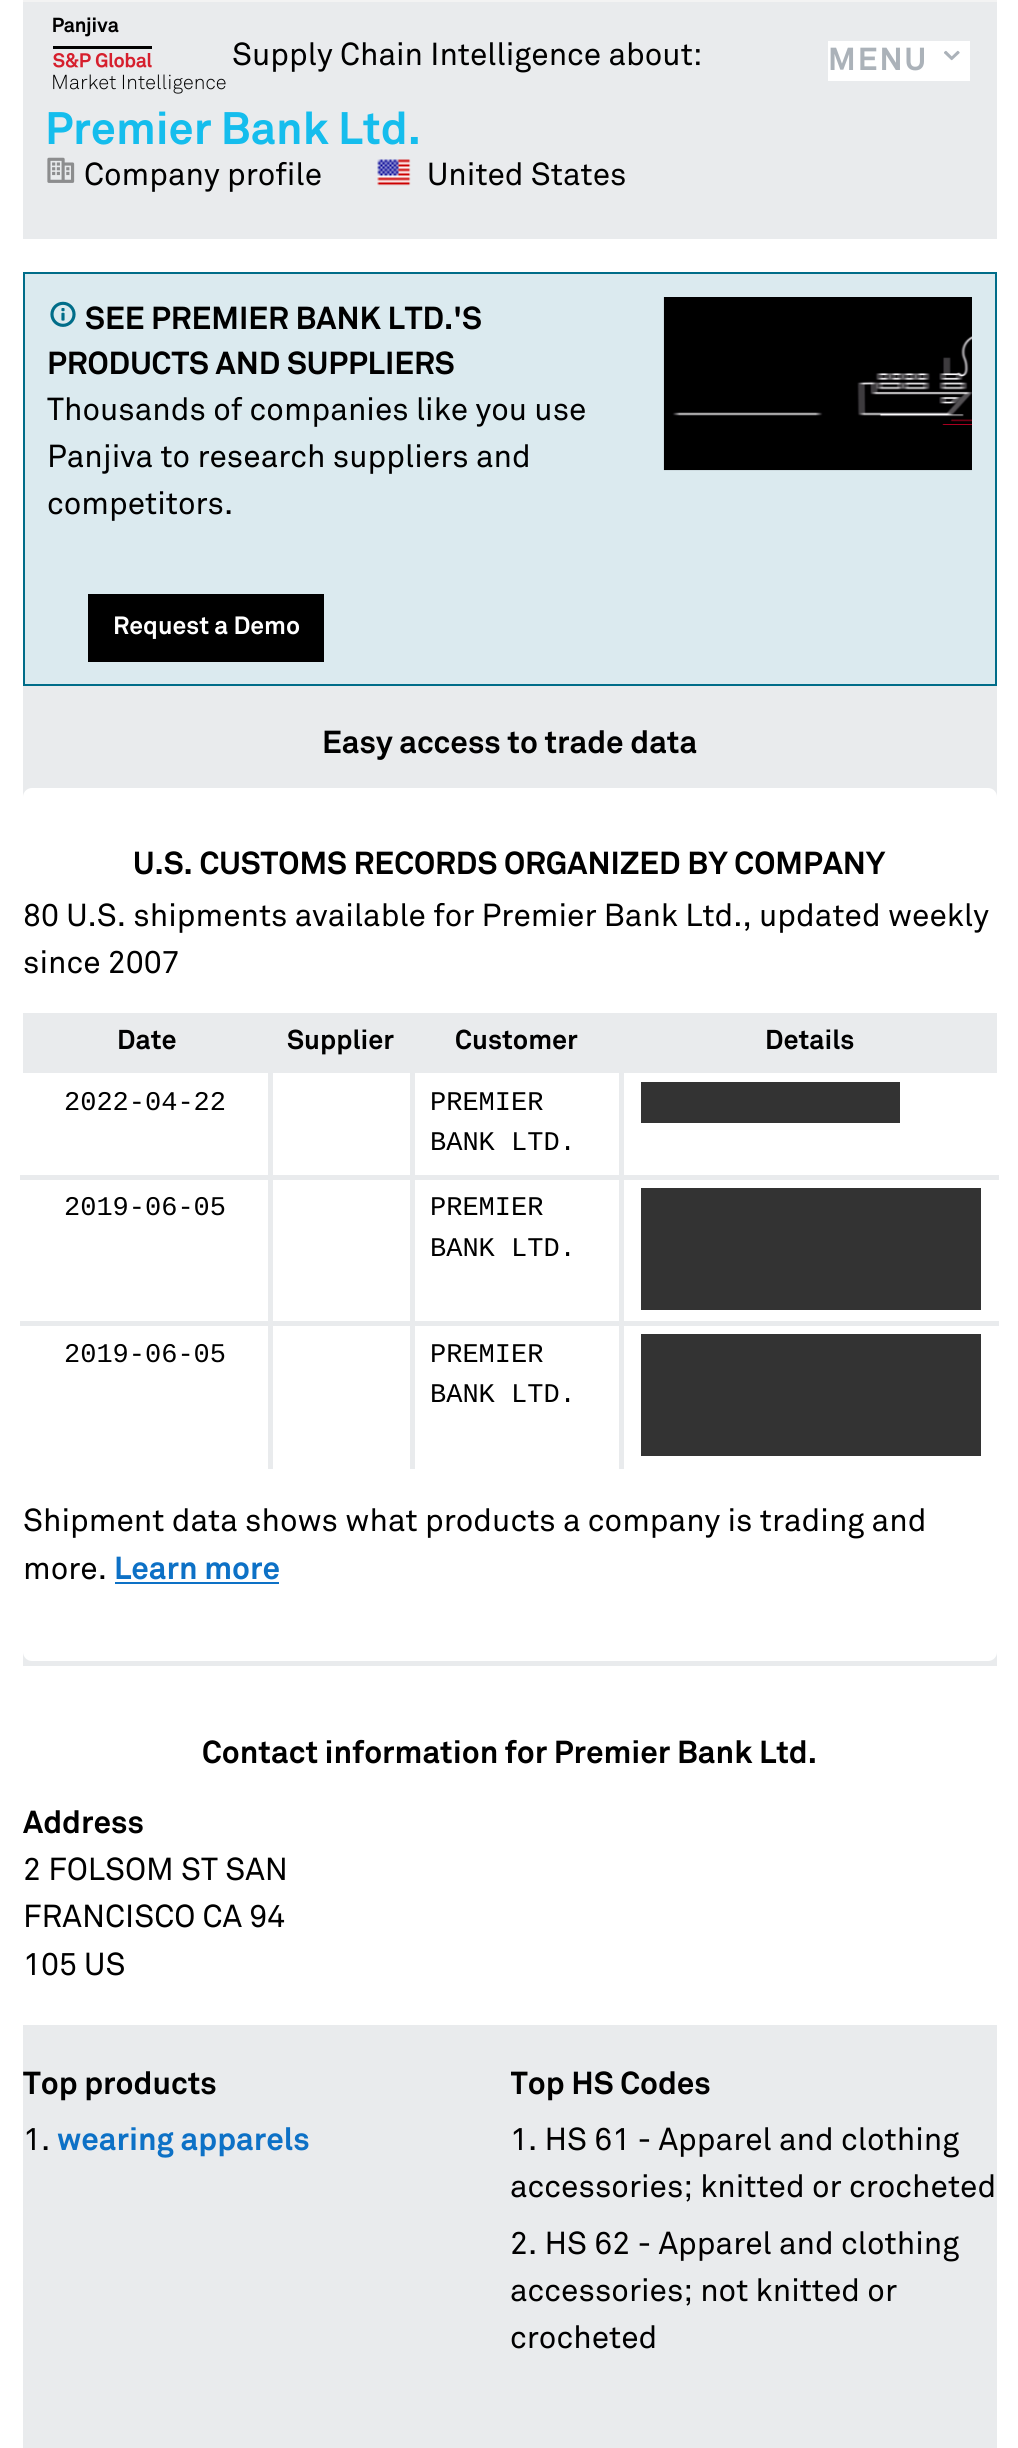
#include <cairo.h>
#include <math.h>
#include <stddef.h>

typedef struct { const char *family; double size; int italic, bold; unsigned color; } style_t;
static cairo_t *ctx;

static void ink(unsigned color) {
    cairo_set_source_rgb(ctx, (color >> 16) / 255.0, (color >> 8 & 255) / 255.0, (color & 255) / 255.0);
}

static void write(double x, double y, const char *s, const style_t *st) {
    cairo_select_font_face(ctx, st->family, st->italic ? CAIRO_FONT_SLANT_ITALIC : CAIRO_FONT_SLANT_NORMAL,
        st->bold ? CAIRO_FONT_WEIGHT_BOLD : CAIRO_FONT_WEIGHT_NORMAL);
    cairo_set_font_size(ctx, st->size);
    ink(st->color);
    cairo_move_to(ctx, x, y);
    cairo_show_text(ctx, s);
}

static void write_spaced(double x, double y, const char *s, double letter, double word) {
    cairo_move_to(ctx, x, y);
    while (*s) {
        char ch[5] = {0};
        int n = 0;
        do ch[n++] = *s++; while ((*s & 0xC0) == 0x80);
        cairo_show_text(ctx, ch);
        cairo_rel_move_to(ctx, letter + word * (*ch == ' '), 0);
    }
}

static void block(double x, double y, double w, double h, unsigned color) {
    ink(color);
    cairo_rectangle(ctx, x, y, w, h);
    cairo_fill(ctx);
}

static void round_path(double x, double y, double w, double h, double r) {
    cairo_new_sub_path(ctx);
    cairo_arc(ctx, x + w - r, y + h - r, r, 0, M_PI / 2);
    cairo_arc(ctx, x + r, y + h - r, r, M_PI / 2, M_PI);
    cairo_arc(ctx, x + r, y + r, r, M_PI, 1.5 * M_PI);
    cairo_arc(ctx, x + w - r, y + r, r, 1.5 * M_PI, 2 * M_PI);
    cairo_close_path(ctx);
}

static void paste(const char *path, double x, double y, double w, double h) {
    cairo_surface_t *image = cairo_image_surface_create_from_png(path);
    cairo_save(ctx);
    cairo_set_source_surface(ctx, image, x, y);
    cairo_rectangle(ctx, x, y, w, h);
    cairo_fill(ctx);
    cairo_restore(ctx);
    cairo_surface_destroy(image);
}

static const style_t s1 = {"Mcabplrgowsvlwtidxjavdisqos", 31.5, 0, 0, 0x000000};
static const style_t s2 = {"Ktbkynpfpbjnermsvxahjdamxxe", 45, 0, 1, 0x15bded};
static const style_t s3 = {"Ktbkynpfpbjnermsvxahjdamxxe", 31.5, 0, 1, 0x000000};
static const style_t s4 = {"Ktbkynpfpbjnermsvxahjdamxxe", 24.75, 0, 1, 0xffffff};
static const style_t s5 = {"Ktbkynpfpbjnermsvxahjdamxxe", 27, 0, 1, 0x000000};
static const style_t s6 = {"Liberation Mono", 27, 0, 0, 0x000000};
static const style_t s7 = {"Ktbkynpfpbjnermsvxahjdamxxe", 31.5, 0, 1, 0x0d71c6};

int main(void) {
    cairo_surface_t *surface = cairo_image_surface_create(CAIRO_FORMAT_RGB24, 1018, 2448);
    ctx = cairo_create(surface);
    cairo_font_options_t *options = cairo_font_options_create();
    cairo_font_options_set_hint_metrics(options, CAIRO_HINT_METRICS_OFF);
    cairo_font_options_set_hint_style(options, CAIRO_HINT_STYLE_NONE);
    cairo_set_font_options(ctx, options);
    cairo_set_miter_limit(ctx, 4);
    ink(0xffffff);
    cairo_paint(ctx);
    block(23, 2, 974, 237, 0xe9ebed);
    write(232, 65, "Supply Chain Intelligence about:", &s1);
    write(45, 144, "Premier Bank Ltd.", &s2);
    paste("pic1.png", 47, 157, 28, 26);
    write(84, 185, "Company profile", &s1);
    paste("pic2.png", 377, 159, 34, 27);
    write(427, 185, "United States", &s1);
    block(23, 0, 974, 2, 0xf3f3f3);
    paste("pic3.png", 53, 17, 173, 77);
    block(828, 41, 142, 40, 0xffffff);
    cairo_select_font_face(ctx, "Ktbkynpfpbjnermsvxahjdamxxe", CAIRO_FONT_SLANT_NORMAL, CAIRO_FONT_WEIGHT_BOLD);
    ink(0xabb2b9);
    write_spaced(828, 70, "MENU", 2, 0);
    paste("pic4.png", 944, 50, 16, 11);
    ink(0xdbeaef);
    cairo_rectangle(ctx, 24, 273, 972, 412);
    cairo_fill_preserve(ctx);
    ink(0x006d89);
    cairo_stroke(ctx);
    paste("pic5.png", 50, 301, 26, 26);
    write(85, 329, "SEE PREMIER BANK LTD.'S", &s3);
    write(47, 374, "PRODUCTS AND SUPPLIERS", &s3);
    write(47, 420, "Thousands of companies like you use", &s1);
    write(47, 467, "Panjiva to research suppliers and", &s1);
    write(47, 514, "competitors.", &s1);
    block(88, 594, 236, 68, 0x000000);
    write(113, 634, "Request a Demo", &s4);
    paste("pic6.png", 663, 297, 309, 174);
    block(23, 686, 974, 980, 0xe9ebed);
    write(322, 753, "Easy access to trade data", &s3);
    ink(0xffffff);
    round_path(23, 788, 974, 873, 9);
    cairo_fill(ctx);
    write(133, 874, "U.S. CUSTOMS RECORDS ORGANIZED BY COMPANY", &s3);
    write(23, 926, "80 U.S. shipments available for Premier Bank Ltd., updated weekly", &s1);
    write(23, 973, "since 2007", &s1);
    block(23, 1013, 974, 60, 0xe9ebed);
    write(117, 1049, "Date", &s5);
    write(287, 1049, "Supplier", &s5);
    write(455, 1049, "Customer", &s5);
    write(765, 1049, "Details", &s5);
    block(20, 1175, 979, 5, 0xe9ebed);
    write(64, 1110, "2022-04-22", &s6);
    write(430, 1110, "PREMIER", &s6);
    write(430, 1150, "BANK LTD.", &s6);
    block(641, 1082, 259, 41, 0x333333);
    block(20, 1321, 979, 5, 0xe9ebed);
    write(64, 1215, "2019-06-05", &s6);
    write(430, 1215, "PREMIER", &s6);
    write(430, 1256, "BANK LTD.", &s6);
    block(641, 1188, 340, 122, 0x333333);
    write(64, 1362, "2019-06-05", &s6);
    block(268, 1071, 5, 398, 0xe9ebed);
    block(410, 1071, 5, 398, 0xe9ebed);
    write(430, 1362, "PREMIER", &s6);
    write(430, 1402, "BANK LTD.", &s6);
    block(619, 1071, 5, 398, 0xe9ebed);
    block(641, 1334, 340, 122, 0x333333);
    write(23, 1531, "Shipment data shows what products a company is trading and", &s1);
    write(23, 1579, "more.", &s1);
    write(114, 1579, "Learn more", &s7);
    block(115, 1582, 164, 2, 0x0d71c6);
    write(202, 1763, "Contact information for Premier Bank Ltd.", &s3);
    write(23, 1833, "Address", &s3);
    write(23, 1880, "2 FOLSOM ST SAN", &s1);
    write(23, 1927, "FRANCISCO CA 94", &s1);
    write(23, 1975, "105 US", &s1);
    block(23, 2025, 974, 423, 0xe9ebed);
    cairo_save(ctx);
    cairo_rectangle(ctx, 23, 2063, 488, 126);
    cairo_clip(ctx);
    write(23, 2094, "Top products", &s3);
    cairo_restore(ctx);
    write(23, 2150, "1.", &s1);
    write(57, 2150, "wearing apparels", &s7);
    cairo_save(ctx);
    cairo_rectangle(ctx, 511, 2063, 486, 324);
    cairo_clip(ctx);
    write(510, 2094, "Top HS Codes", &s3);
    cairo_restore(ctx);
    write(510, 2150, "1. HS 61 - Apparel and clothing", &s1);
    write(510, 2197, "accessories; knitted or crocheted", &s1);
    write(510, 2254, "2. HS 62 - Apparel and clothing", &s1);
    write(510, 2301, "accessories; not knitted or", &s1);
    write(510, 2348, "crocheted", &s1);
    cairo_surface_write_to_png(surface, "screenshot.png");
    cairo_font_options_destroy(options);
    cairo_destroy(ctx);
    cairo_surface_destroy(surface);
    return 0;
}
